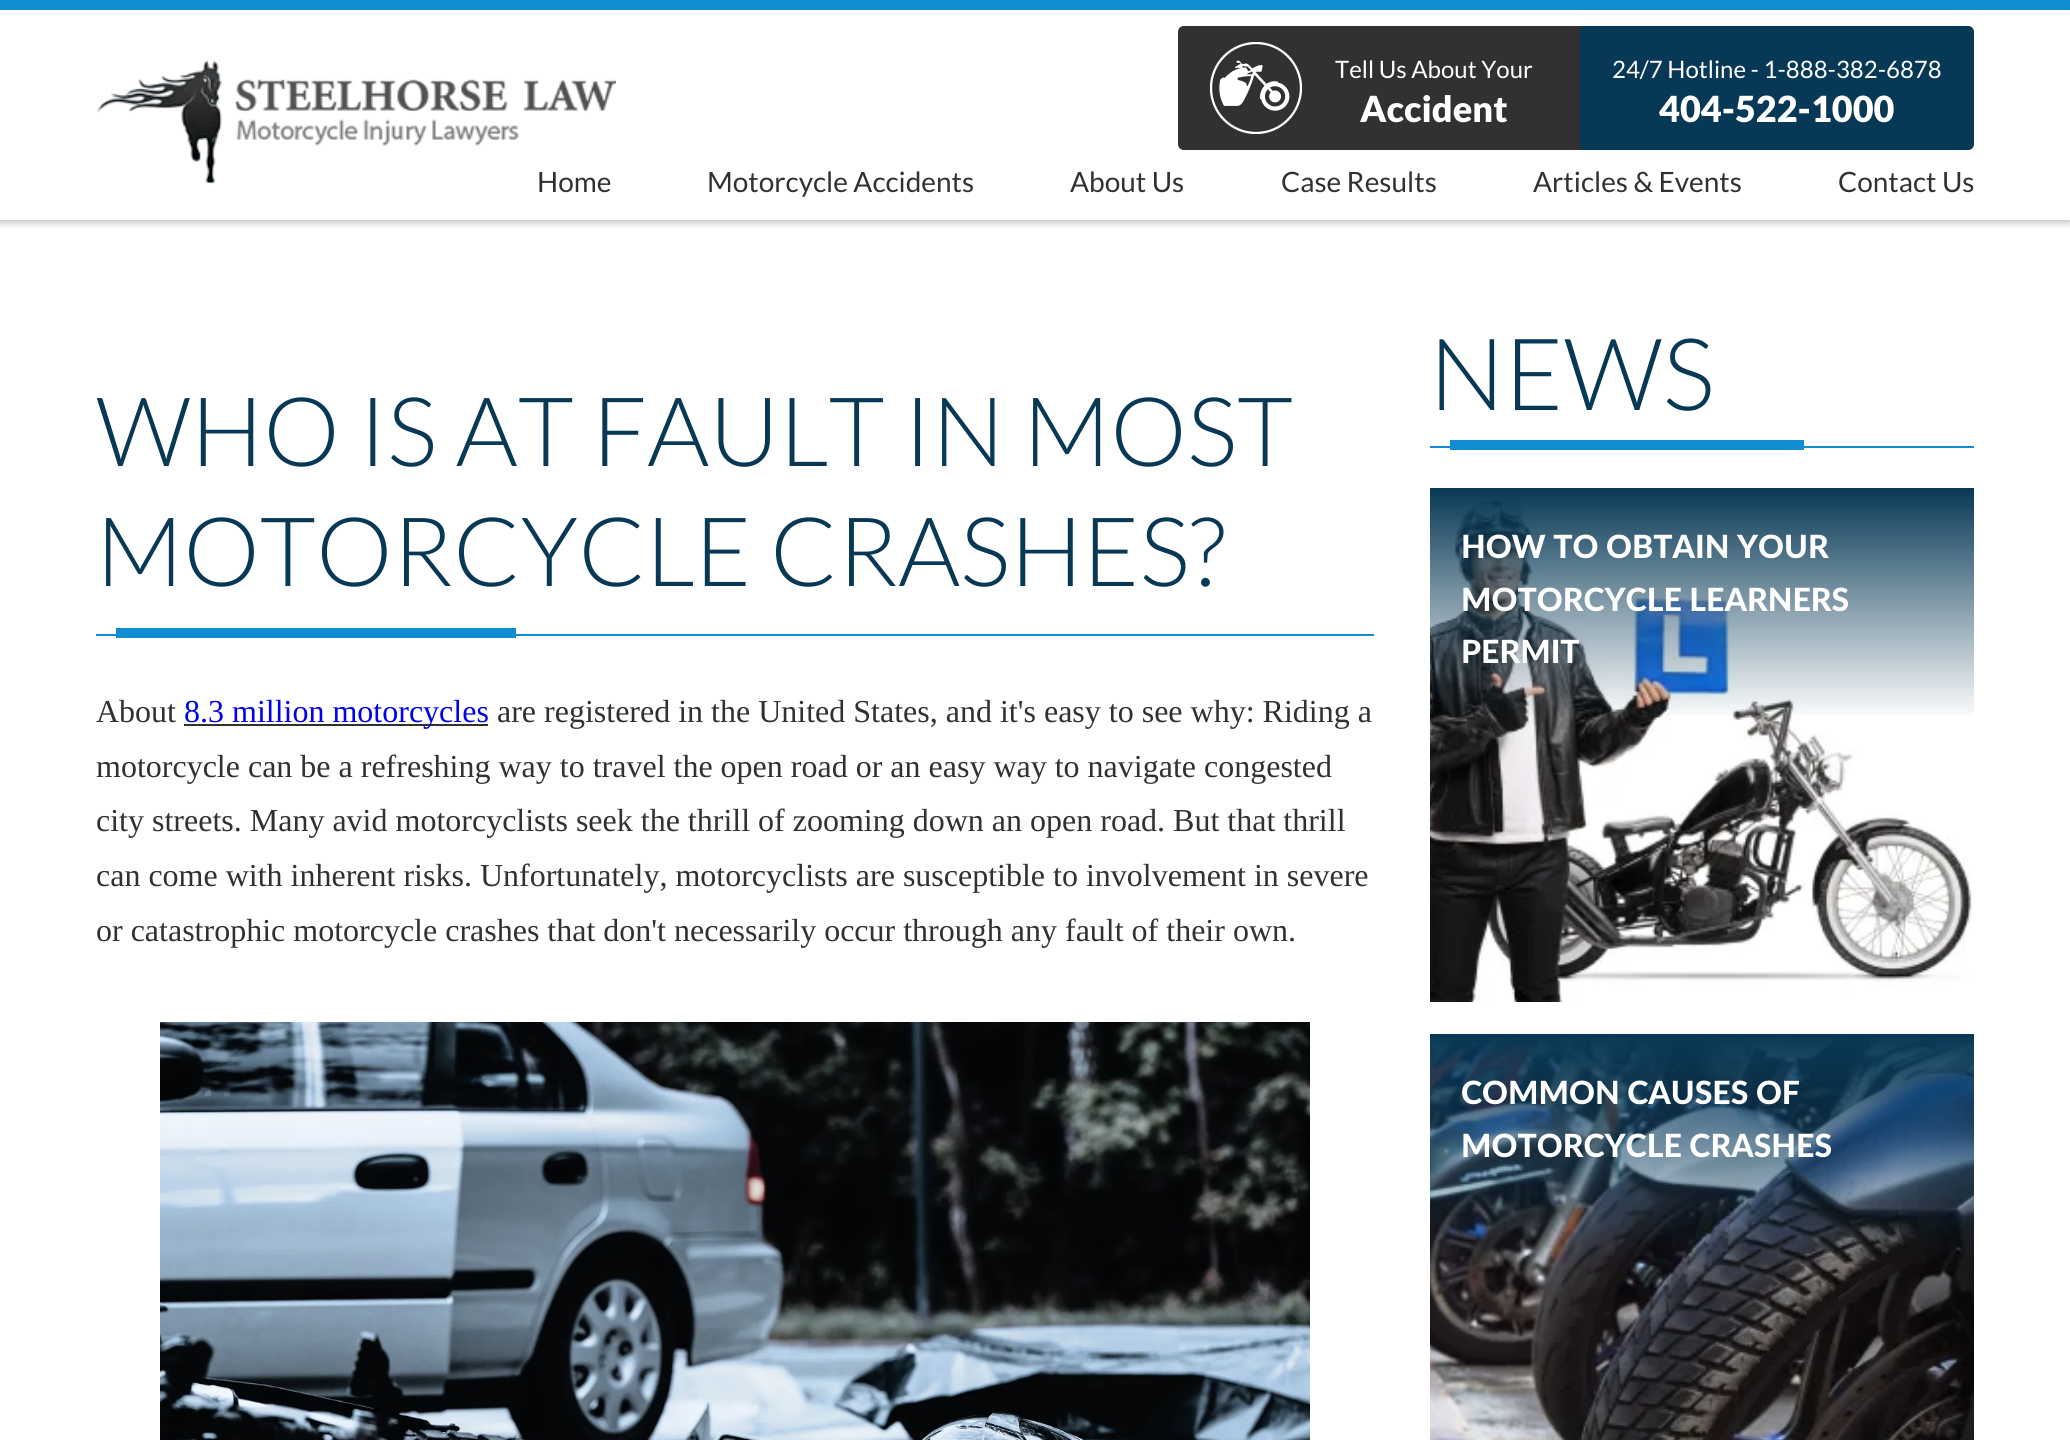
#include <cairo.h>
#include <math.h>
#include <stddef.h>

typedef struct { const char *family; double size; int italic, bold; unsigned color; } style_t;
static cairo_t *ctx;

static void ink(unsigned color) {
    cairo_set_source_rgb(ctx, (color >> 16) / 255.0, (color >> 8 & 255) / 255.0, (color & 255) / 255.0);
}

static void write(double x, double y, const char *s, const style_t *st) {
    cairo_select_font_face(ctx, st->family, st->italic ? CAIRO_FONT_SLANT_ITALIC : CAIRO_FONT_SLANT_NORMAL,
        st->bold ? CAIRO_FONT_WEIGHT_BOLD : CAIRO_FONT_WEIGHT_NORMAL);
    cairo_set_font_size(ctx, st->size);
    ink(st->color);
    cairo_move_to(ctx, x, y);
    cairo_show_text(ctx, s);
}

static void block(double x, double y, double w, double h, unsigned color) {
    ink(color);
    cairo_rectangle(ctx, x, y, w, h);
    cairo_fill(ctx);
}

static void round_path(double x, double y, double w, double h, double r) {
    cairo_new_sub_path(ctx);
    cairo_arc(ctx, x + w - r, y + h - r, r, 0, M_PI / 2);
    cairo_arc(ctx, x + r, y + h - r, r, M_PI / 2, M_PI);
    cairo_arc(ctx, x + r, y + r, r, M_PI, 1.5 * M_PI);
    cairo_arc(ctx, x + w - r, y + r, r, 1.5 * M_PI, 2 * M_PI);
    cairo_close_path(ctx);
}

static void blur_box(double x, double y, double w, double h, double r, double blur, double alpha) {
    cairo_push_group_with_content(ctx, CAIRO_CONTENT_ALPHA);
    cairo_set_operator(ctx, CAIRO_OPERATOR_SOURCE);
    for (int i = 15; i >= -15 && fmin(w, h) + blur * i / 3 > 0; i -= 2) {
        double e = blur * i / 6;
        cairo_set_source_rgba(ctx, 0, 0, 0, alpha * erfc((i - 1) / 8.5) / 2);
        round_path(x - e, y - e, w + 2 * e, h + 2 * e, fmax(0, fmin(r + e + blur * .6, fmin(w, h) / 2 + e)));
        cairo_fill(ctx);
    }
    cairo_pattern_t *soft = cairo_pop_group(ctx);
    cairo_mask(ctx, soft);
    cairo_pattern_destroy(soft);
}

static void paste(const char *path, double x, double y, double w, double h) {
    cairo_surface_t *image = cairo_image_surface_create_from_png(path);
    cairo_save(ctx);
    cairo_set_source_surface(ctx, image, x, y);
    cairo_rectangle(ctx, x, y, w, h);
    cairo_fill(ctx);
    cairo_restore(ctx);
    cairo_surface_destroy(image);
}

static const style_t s1 = {"Lato", 28, 0, 0, 0x313131};
static const style_t s2 = {"Lato", 24, 0, 0, 0xffffff};
static const style_t s3 = {"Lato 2 Black", 36, 0, 0, 0xffffff};
static const style_t s4 = {"Lato Light", 96, 0, 0, 0x073855};
static const style_t s5 = {"Liberation Serif", 32, 0, 0, 0x313131};
static const style_t s6 = {"Liberation Serif", 32, 0, 0, 0x0000ee};
static const style_t s7 = {"Lato Light", 100, 0, 0, 0x073855};
static const style_t s8 = {"Lato Black", 32, 0, 0, 0xffffff};

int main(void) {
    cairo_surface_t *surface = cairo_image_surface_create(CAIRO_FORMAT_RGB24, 2070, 1440);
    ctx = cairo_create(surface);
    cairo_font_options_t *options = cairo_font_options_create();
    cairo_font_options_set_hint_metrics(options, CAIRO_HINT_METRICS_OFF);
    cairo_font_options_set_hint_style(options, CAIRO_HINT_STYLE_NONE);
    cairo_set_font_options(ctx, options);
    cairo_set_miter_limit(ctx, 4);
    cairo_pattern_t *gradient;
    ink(0xffffff);
    cairo_paint(ctx);
    cairo_save(ctx);
    cairo_rectangle(ctx, 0, 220, 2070, 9);
    cairo_clip(ctx);
    ink(0x313131);
    blur_box(0, 0, 2070, 220, 0, 5, 0.5);
    cairo_restore(ctx);
    block(0, 0, 2070, 10, 0x128dd4);
    write(537, 192, "Home", &s1);
    paste("pic1.png", 97, 60, 519, 124);
    cairo_new_path(ctx);
    cairo_move_to(ctx, 1184, 26);
    cairo_line_to(ctx, 1580, 26);
    cairo_line_to(ctx, 1580, 150);
    cairo_line_to(ctx, 1184, 150);
    cairo_curve_to(ctx, 1180.5, 150, 1178, 147.5, 1178, 144);
    cairo_line_to(ctx, 1178, 32);
    cairo_curve_to(ctx, 1178, 28.5, 1180.5, 26, 1184, 26);
    cairo_close_path(ctx);
    cairo_fill(ctx);
    paste("pic2.png", 1210, 42, 92, 92);
    write(1335, 78, "Tell Us About Your", &s2);
    write(1360, 122, "Accident", &s3);
    ink(0x073855);
    cairo_new_path(ctx);
    cairo_move_to(ctx, 1580, 26);
    cairo_line_to(ctx, 1968, 26);
    cairo_curve_to(ctx, 1971.5, 26, 1974, 28.5, 1974, 32);
    cairo_line_to(ctx, 1974, 144);
    cairo_curve_to(ctx, 1974, 147.5, 1971.5, 150, 1968, 150);
    cairo_line_to(ctx, 1580, 150);
    cairo_close_path(ctx);
    cairo_fill(ctx);
    write(1612, 78, "24/7 Hotline - 1-888-382-6878", &s2);
    write(1659, 122, "404-522-1000", &s3);
    write(707, 192, "Motorcycle Accidents", &s1);
    write(1070, 192, "About Us", &s1);
    write(1281, 192, "Case Results", &s1);
    write(1533, 192, "Articles & Events", &s1);
    write(1838, 192, "Contact Us", &s1);
    block(96, 634, 1278, 2, 0x128dd4);
    write(96, 466, "WHO IS AT FAULT IN MOST", &s4);
    write(96, 586, "MOTORCYCLE CRASHES?", &s4);
    block(116, 628, 400, 10, 0x128dd4);
    write(96, 722, "About", &s5);
    block(184, 724, 304, 2, 0x313131);
    write(184, 722, "8.3 million motorcycles", &s6);
    write(497, 722, "are registered in the United States, and it's easy to see why: Riding a", &s5);
    write(96, 777, "motorcycle can be a refreshing way to travel the open road or an easy way to navigate congested", &s5);
    write(96, 831, "city streets. Many avid motorcyclists seek the thrill of zooming down an open road. But that thrill", &s5);
    write(96, 886, "can come with inherent risks. Unfortunately, motorcyclists are susceptible to involvement in severe", &s5);
    write(96, 941, "or catastrophic motorcycle crashes that don't necessarily occur through any fault of their own.", &s5);
    paste("pic3.png", 160, 1022, 1150, 418);
    block(1430, 446, 544, 2, 0x128dd4);
    write(1429, 410, "NEWS", &s7);
    block(1450, 440, 354, 10, 0x128dd4);
    paste("pic4.png", 1430, 496, 542, 506);
    gradient = cairo_pattern_create_linear(1702, 488, 1702, 720);
    cairo_pattern_add_color_stop_rgba(gradient, 0, 0.027, 0.22, 0.333, 1);
    cairo_pattern_add_color_stop_rgba(gradient, 1, 0.027, 0.22, 0.333, 0);
    cairo_set_source(ctx, gradient);
    cairo_pattern_destroy(gradient);
    cairo_rectangle(ctx, 1430, 488, 544, 227);
    cairo_fill(ctx);
    write(1461, 558, "HOW TO OBTAIN YOUR", &s8);
    write(1461, 611, "MOTORCYCLE LEARNERS", &s8);
    write(1461, 663, "PERMIT", &s8);
    paste("pic5.png", 1430, 1034, 544, 406);
    write(1461, 1104, "COMMON CAUSES OF", &s8);
    write(1461, 1157, "MOTORCYCLE CRASHES", &s8);
    cairo_surface_write_to_png(surface, "screenshot.png");
    cairo_font_options_destroy(options);
    cairo_destroy(ctx);
    cairo_surface_destroy(surface);
    return 0;
}
